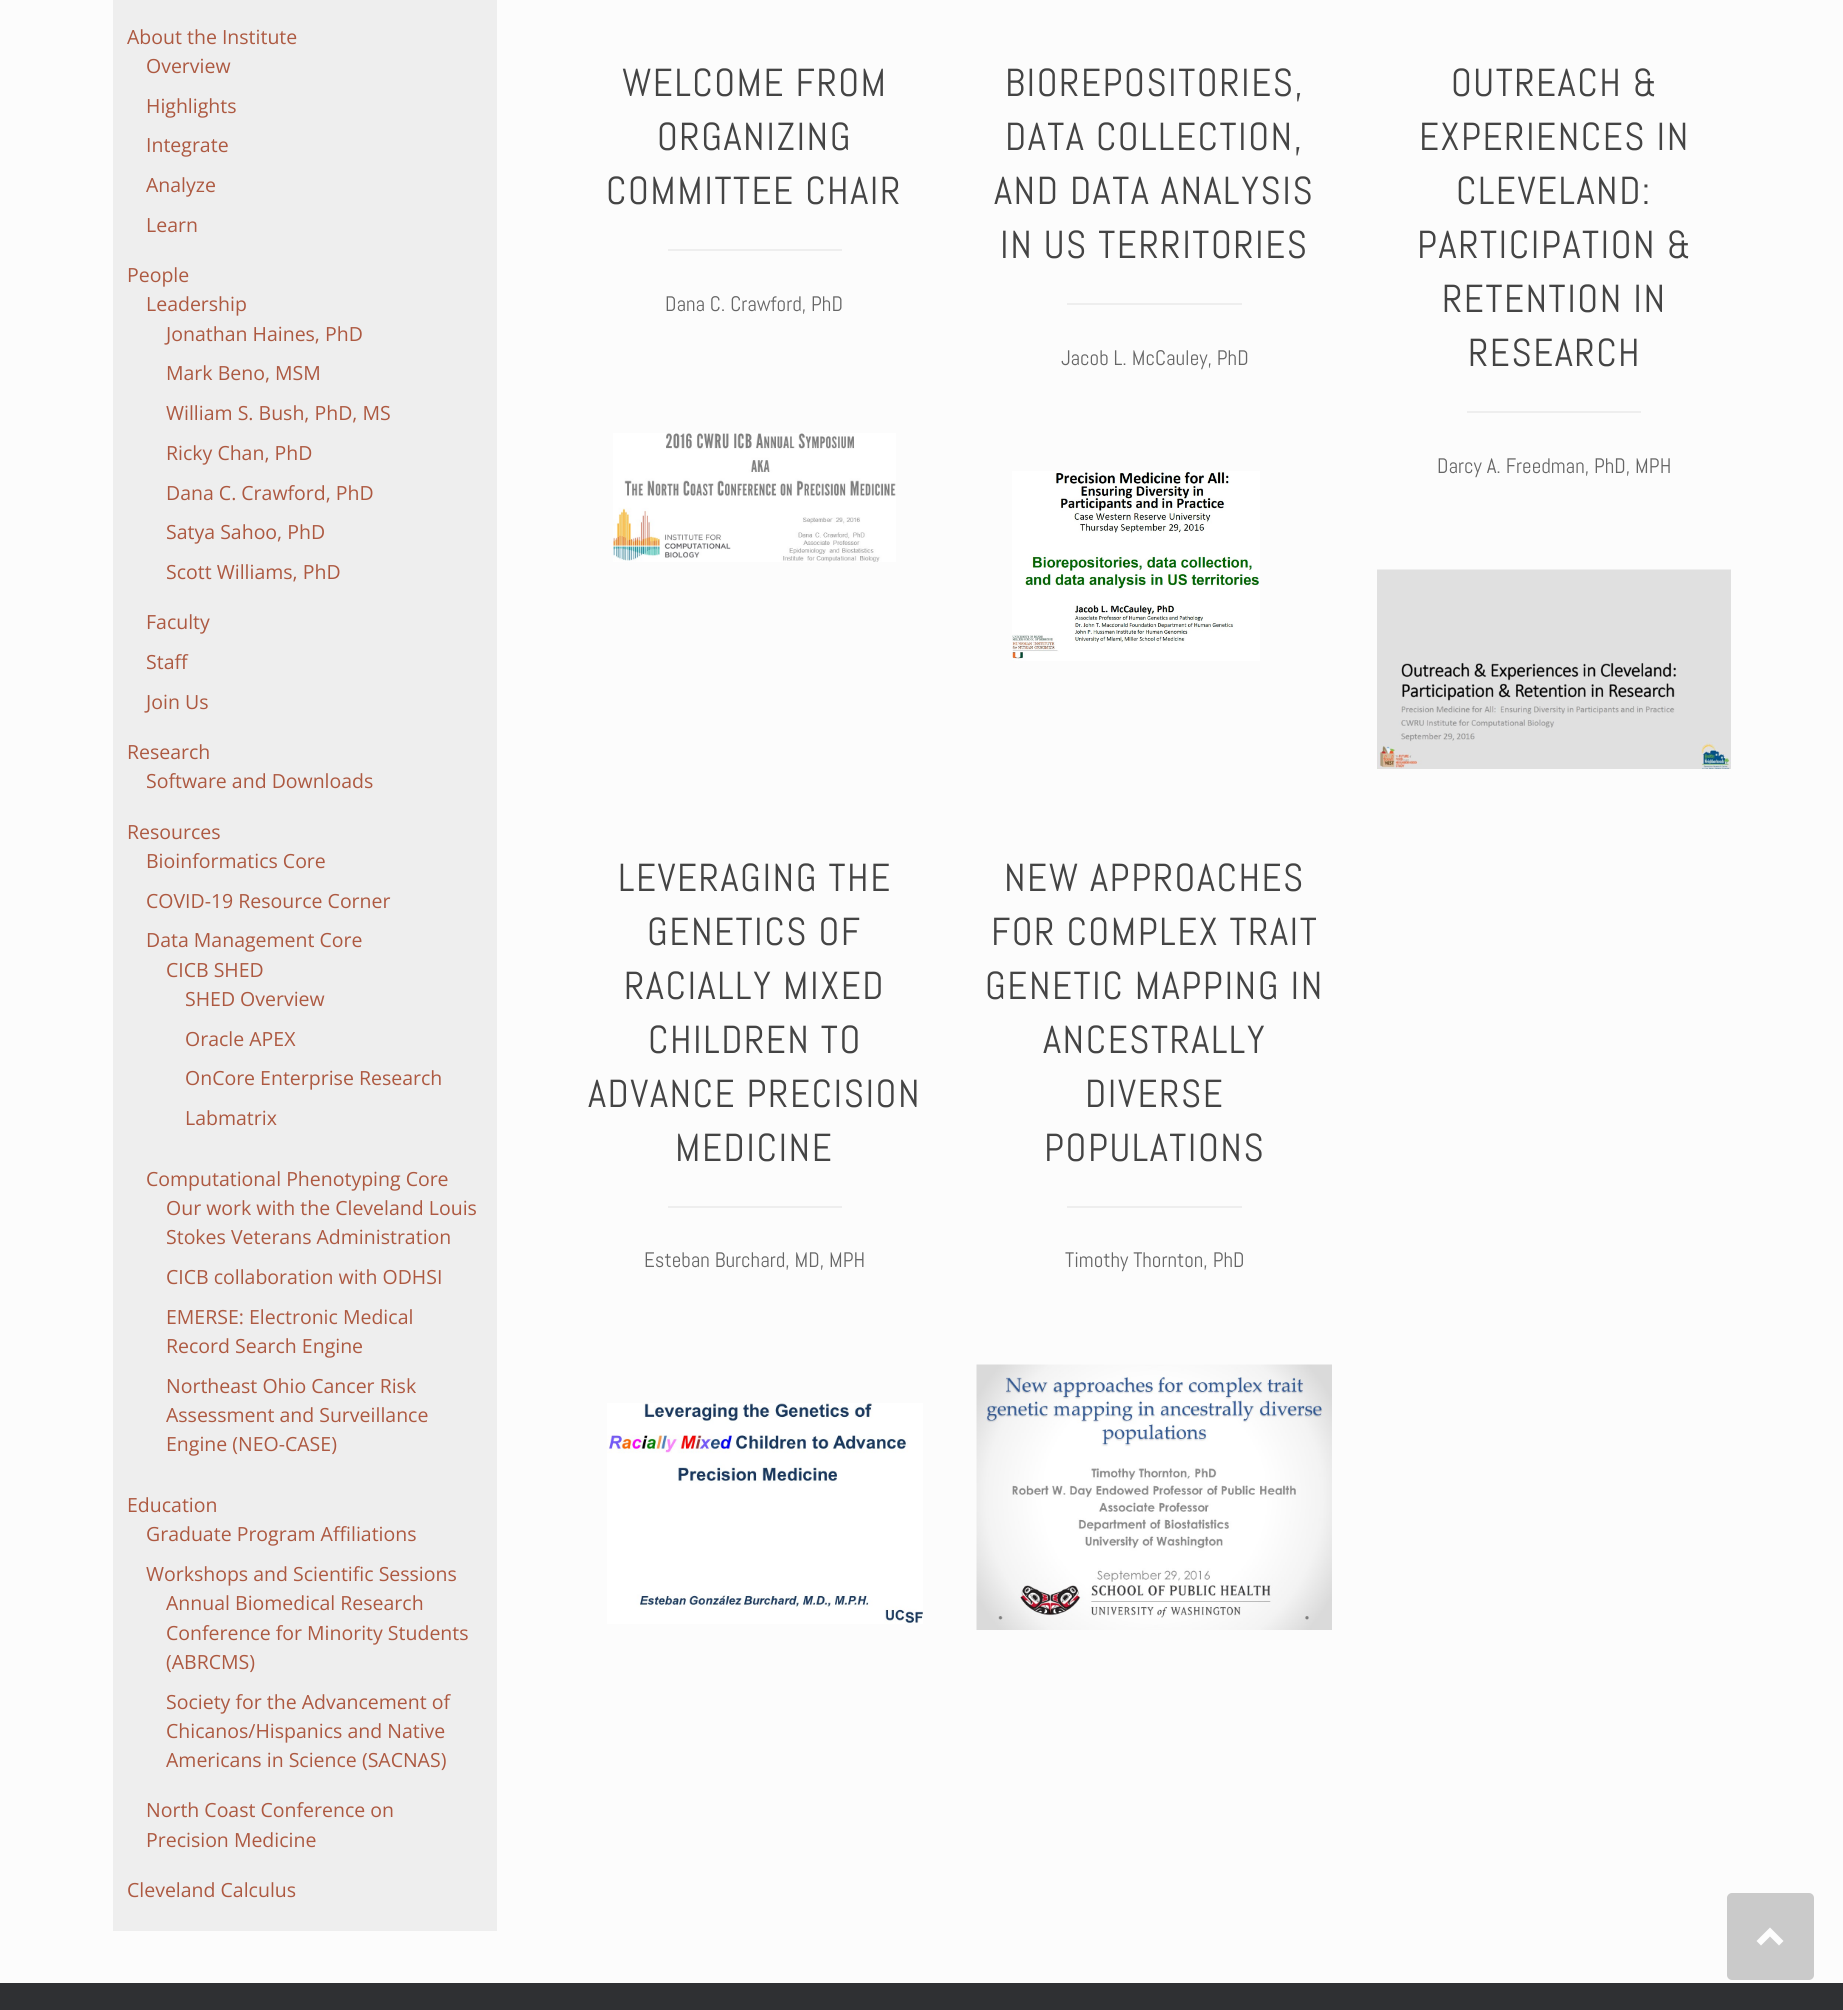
#include <cairo.h>
#include <math.h>
#include <stddef.h>

typedef struct { const char *family; double size; int italic, bold; unsigned color; } style_t;
static cairo_t *ctx;

static void ink(unsigned color) {
    cairo_set_source_rgb(ctx, (color >> 16) / 255.0, (color >> 8 & 255) / 255.0, (color & 255) / 255.0);
}

static void write(double x, double y, const char *s, const style_t *st) {
    cairo_select_font_face(ctx, st->family, st->italic ? CAIRO_FONT_SLANT_ITALIC : CAIRO_FONT_SLANT_NORMAL,
        st->bold ? CAIRO_FONT_WEIGHT_BOLD : CAIRO_FONT_WEIGHT_NORMAL);
    cairo_set_font_size(ctx, st->size);
    ink(st->color);
    cairo_move_to(ctx, x, y);
    cairo_show_text(ctx, s);
}

static void write_spaced(double x, double y, const char *s, double letter, double word) {
    cairo_move_to(ctx, x, y);
    while (*s) {
        char ch[5] = {0};
        int n = 0;
        do ch[n++] = *s++; while ((*s & 0xC0) == 0x80);
        cairo_show_text(ctx, ch);
        cairo_rel_move_to(ctx, letter + word * (*ch == ' '), 0);
    }
}

static void block(double x, double y, double w, double h, unsigned color) {
    ink(color);
    cairo_rectangle(ctx, x, y, w, h);
    cairo_fill(ctx);
}

static void round_path(double x, double y, double w, double h, double r) {
    cairo_new_sub_path(ctx);
    cairo_arc(ctx, x + w - r, y + h - r, r, 0, M_PI / 2);
    cairo_arc(ctx, x + r, y + h - r, r, M_PI / 2, M_PI);
    cairo_arc(ctx, x + r, y + r, r, M_PI, 1.5 * M_PI);
    cairo_arc(ctx, x + w - r, y + r, r, 1.5 * M_PI, 2 * M_PI);
    cairo_close_path(ctx);
}

static void paste(const char *path, double x, double y, double w, double h) {
    cairo_surface_t *image = cairo_image_surface_create_from_png(path);
    cairo_save(ctx);
    cairo_set_source_surface(ctx, image, x, y);
    cairo_rectangle(ctx, x, y, w, h);
    cairo_fill(ctx);
    cairo_restore(ctx);
    cairo_surface_destroy(image);
}

static const style_t s1 = {"Open Sans", 19.5, 0, 0, 0xad5941};
static const style_t s2 = {"Abel", 21, 0, 0, 0x666666};

int main(void) {
    cairo_surface_t *surface = cairo_image_surface_create(CAIRO_FORMAT_RGB24, 1843, 2010);
    ctx = cairo_create(surface);
    cairo_font_options_t *options = cairo_font_options_create();
    cairo_font_options_set_hint_metrics(options, CAIRO_HINT_METRICS_OFF);
    cairo_font_options_set_hint_style(options, CAIRO_HINT_STYLE_NONE);
    cairo_set_font_options(ctx, options);
    cairo_set_miter_limit(ctx, 4);
    ink(0x2f3033);
    cairo_paint(ctx);
    block(0, 0, 1843, 1983, 0xfcfcfc);
    block(113, 0, 384, 1931, 0xeeeeee);
    write(127, 44, "About the Institute", &s1);
    write(146, 73, "Overview", &s1);
    write(146, 113, "Highlights", &s1);
    write(146, 152, "Integrate", &s1);
    write(146, 192, "Analyze", &s1);
    write(146, 232, "Learn", &s1);
    write(127, 282, "People", &s1);
    write(146, 311, "Leadership", &s1);
    write(166, 341, "Jonathan Haines, PhD", &s1);
    write(166, 380, "Mark Beno, MSM", &s1);
    write(166, 420, "William S. Bush, PhD, MS", &s1);
    write(166, 460, "Ricky Chan, PhD", &s1);
    write(166, 500, "Dana C. Crawford, PhD", &s1);
    write(166, 539, "Satya Sahoo, PhD", &s1);
    write(166, 579, "Scott Williams, PhD", &s1);
    write(146, 629, "Faculty", &s1);
    write(146, 669, "Staff", &s1);
    write(146, 709, "Join Us", &s1);
    write(127, 759, "Research", &s1);
    write(146, 788, "Software and Downloads", &s1);
    write(127, 839, "Resources", &s1);
    write(146, 868, "Bioinformatics Core", &s1);
    write(146, 908, "COVID-19 Resource Corner", &s1);
    write(146, 947, "Data Management Core", &s1);
    write(166, 977, "CICB SHED", &s1);
    write(185, 1006, "SHED Overview", &s1);
    write(185, 1046, "Oracle APEX", &s1);
    write(185, 1085, "OnCore Enterprise Research", &s1);
    write(185, 1125, "Labmatrix", &s1);
    write(146, 1186, "Computational Phenotyping Core", &s1);
    write(166, 1215, "Our work with the Cleveland Louis", &s1);
    write(166, 1244, "Stokes Veterans Administration", &s1);
    write(166, 1284, "CICB collaboration with ODHSI", &s1);
    write(166, 1324, "EMERSE: Electronic Medical", &s1);
    write(166, 1353, "Record Search Engine", &s1);
    write(166, 1393, "Northeast Ohio Cancer Risk", &s1);
    write(166, 1422, "Assessment and Surveillance", &s1);
    write(166, 1451, "Engine (NEO-CASE)", &s1);
    write(127, 1512, "Education", &s1);
    write(146, 1541, "Graduate Program Affiliations", &s1);
    write(146, 1581, "Workshops and Scientific Sessions", &s1);
    write(166, 1610, "Annual Biomedical Research", &s1);
    write(166, 1640, "Conference for Minority Students", &s1);
    write(166, 1669, "(ABRCMS)", &s1);
    write(166, 1709, "Society for the Advancement of", &s1);
    write(166, 1738, "Chicanos/Hispanics and Native", &s1);
    write(166, 1767, "Americans in Science (SACNAS)", &s1);
    write(146, 1817, "North Coast Conference on", &s1);
    write(146, 1847, "Precision Medicine", &s1);
    write(127, 1897, "Cleveland Calculus", &s1);
    cairo_select_font_face(ctx, "Abel", CAIRO_FONT_SLANT_NORMAL, CAIRO_FONT_WEIGHT_NORMAL);
    cairo_set_font_size(ctx, 39);
    ink(0x444444);
    write_spaced(622, 96, "WELCOME FROM", 1.5, 0);
    write_spaced(657, 150, "ORGANIZING", 1.5, 0);
    write_spaced(606, 204, "COMMITTEE CHAIR", 1.5, 0);
    block(668, 249, 174, 2, 0xeeeeee);
    write(665, 311, "Dana C. Crawford, PhD", &s2);
    paste("pic1.png", 613, 433, 283, 129);
    cairo_set_font_size(ctx, 39);
    ink(0x444444);
    write_spaced(1005, 96, "BIOREPOSITORIES,", 1.5, 0);
    write_spaced(1005, 150, "DATA COLLECTION,", 1.5, 0);
    write_spaced(994, 204, "AND DATA ANALYSIS", 1.5, 0);
    write_spaced(1000, 258, "IN US TERRITORIES", 1.5, 0);
    block(1067, 303, 175, 2, 0xeeeeee);
    write(1061, 365, "Jacob L. McCauley, PhD", &s2);
    paste("pic2.png", 1012, 471, 248, 190);
    cairo_set_font_size(ctx, 39);
    ink(0x444444);
    write_spaced(1451, 96, "OUTREACH &", 1.5, 0);
    write_spaced(1419, 150, "EXPERIENCES IN", 1.5, 0);
    write_spaced(1456, 204, "CLEVELAND:", 1.5, 0);
    write_spaced(1417, 258, "PARTICIPATION &", 1.5, 0);
    write_spaced(1442, 312, "RETENTION IN", 1.5, 0);
    write_spaced(1468, 366, "RESEARCH", 1.5, 0);
    block(1467, 411, 174, 2, 0xeeeeee);
    write(1437, 473, "Darcy A. Freedman, PhD, MPH", &s2);
    paste("pic3.png", 1377, 569, 354, 200);
    cairo_set_font_size(ctx, 39);
    ink(0x444444);
    write_spaced(618, 891, "LEVERAGING THE", 1.5, 0);
    write_spaced(647, 945, "GENETICS OF", 1.5, 0);
    write_spaced(624, 999, "RACIALLY MIXED", 1.5, 0);
    write_spaced(648, 1053, "CHILDREN TO", 1.5, 0);
    write_spaced(588, 1107, "ADVANCE PRECISION", 1.5, 0);
    write_spaced(675, 1161, "MEDICINE", 1.5, 0);
    block(668, 1206, 174, 2, 0xeeeeee);
    write(644, 1267, "Esteban Burchard, MD, MPH", &s2);
    paste("pic4.png", 607, 1403, 316, 221);
    cairo_set_font_size(ctx, 39);
    ink(0x444444);
    write_spaced(1004, 891, "NEW APPROACHES", 1.5, 0);
    write_spaced(991, 945, "FOR COMPLEX TRAIT", 1.5, 0);
    write_spaced(985, 999, "GENETIC MAPPING IN", 1.5, 0);
    write_spaced(1043, 1053, "ANCESTRALLY", 1.5, 0);
    write_spaced(1085, 1107, "DIVERSE", 1.5, 0);
    write_spaced(1044, 1161, "POPULATIONS", 1.5, 0);
    block(1067, 1206, 175, 2, 0xeeeeee);
    write(1065, 1267, "Timothy Thornton, PhD", &s2);
    paste("pic5.png", 976, 1364, 356, 266);
    ink(0xcacaca);
    round_path(1727, 1893, 87, 87, 5);
    cairo_fill(ctx);
    ink(0xfdfdfd);
    cairo_new_path(ctx);
    cairo_move_to(ctx, 1783.5, 1941);
    cairo_line_to(ctx, 1770, 1927.5);
    cairo_line_to(ctx, 1756.5, 1941);
    cairo_line_to(ctx, 1761, 1945.5);
    cairo_line_to(ctx, 1770, 1936.5);
    cairo_line_to(ctx, 1779, 1945.5);
    cairo_close_path(ctx);
    cairo_fill(ctx);
    cairo_surface_write_to_png(surface, "screenshot.png");
    cairo_font_options_destroy(options);
    cairo_destroy(ctx);
    cairo_surface_destroy(surface);
    return 0;
}
